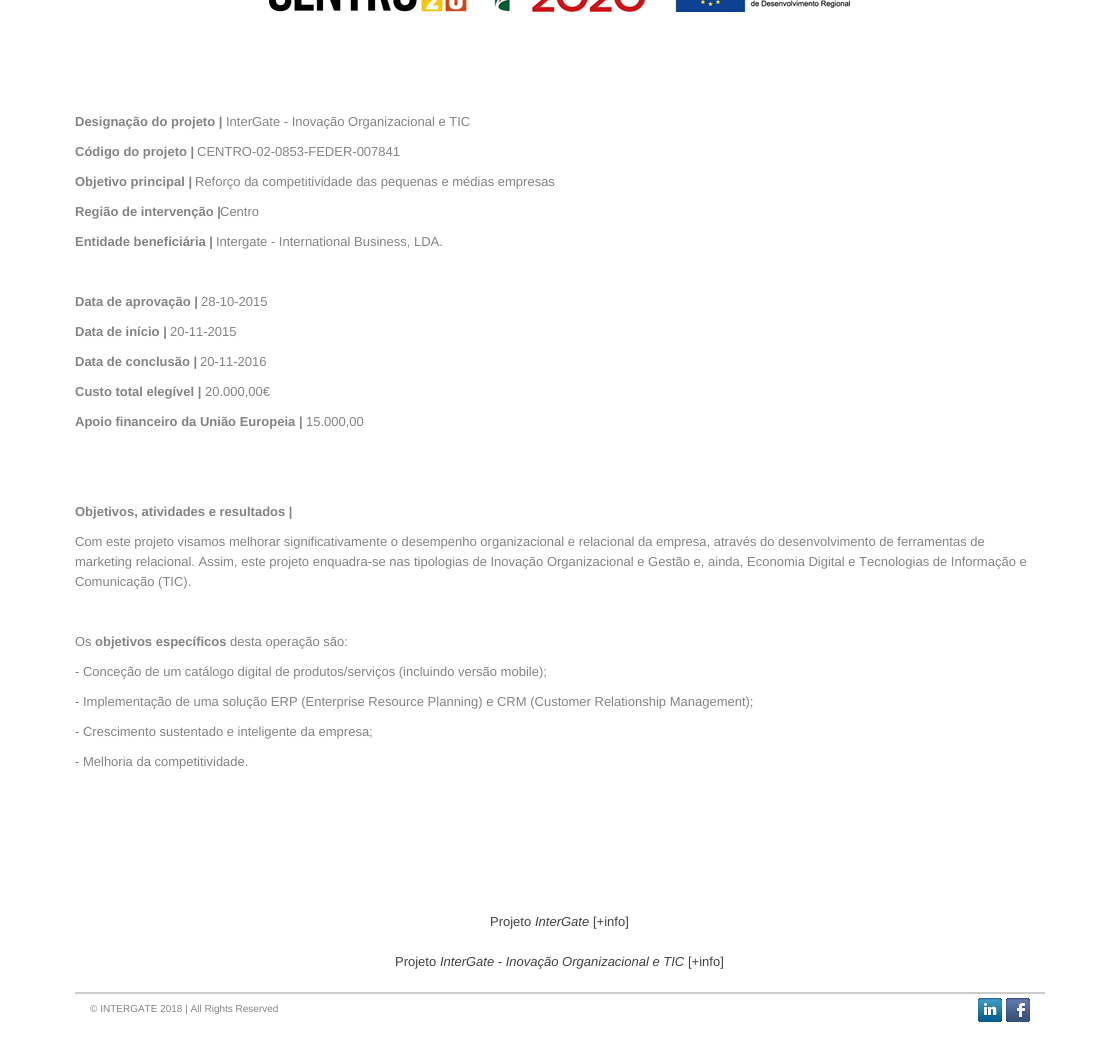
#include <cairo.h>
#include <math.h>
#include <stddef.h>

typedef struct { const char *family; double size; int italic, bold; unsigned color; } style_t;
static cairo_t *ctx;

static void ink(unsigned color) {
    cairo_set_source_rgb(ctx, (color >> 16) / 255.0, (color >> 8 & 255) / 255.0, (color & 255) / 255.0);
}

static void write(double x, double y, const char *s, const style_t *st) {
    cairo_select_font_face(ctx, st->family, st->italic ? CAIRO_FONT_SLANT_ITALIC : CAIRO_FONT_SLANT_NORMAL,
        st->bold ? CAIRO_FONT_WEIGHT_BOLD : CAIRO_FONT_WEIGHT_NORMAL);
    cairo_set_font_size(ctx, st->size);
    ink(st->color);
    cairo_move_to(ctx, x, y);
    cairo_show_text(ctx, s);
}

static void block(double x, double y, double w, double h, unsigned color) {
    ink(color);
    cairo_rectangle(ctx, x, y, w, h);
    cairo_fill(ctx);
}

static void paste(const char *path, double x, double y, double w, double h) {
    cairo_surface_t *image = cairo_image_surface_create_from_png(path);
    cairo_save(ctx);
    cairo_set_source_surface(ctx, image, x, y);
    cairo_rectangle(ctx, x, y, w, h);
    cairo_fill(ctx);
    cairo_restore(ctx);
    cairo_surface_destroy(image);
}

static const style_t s1 = {"Liberation Sans", 13, 0, 1, 0x838383};
static const style_t s2 = {"Liberation Sans", 13, 0, 0, 0x838383};
static const style_t s3 = {"Liberation Sans", 13, 0, 0, 0x404040};
static const style_t s4 = {"Liberation Sans", 13, 1, 0, 0x404040};
static const style_t s5 = {"Liberation Sans", 10, 0, 0, 0x838383};

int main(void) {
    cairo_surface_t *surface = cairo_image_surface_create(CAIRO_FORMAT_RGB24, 1119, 1052);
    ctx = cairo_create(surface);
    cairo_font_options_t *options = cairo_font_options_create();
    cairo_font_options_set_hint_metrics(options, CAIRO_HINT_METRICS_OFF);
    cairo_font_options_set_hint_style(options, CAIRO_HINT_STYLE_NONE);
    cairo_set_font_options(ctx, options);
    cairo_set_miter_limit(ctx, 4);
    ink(0xffffff);
    cairo_paint(ctx);
    paste("pic1.png", 269, 0, 581, 12);
    write(75, 126, "Designação do projeto |", &s1);
    write(226, 126, "InterGate - Inovação Organizacional e TIC", &s2);
    write(75, 156, "Código do projeto |", &s1);
    write(197, 156, "CENTRO-02-0853-FEDER-007841", &s2);
    write(75, 186, "Objetivo principal |", &s1);
    write(195, 186, "Reforço da competitividade das pequenas e médias empresas", &s2);
    write(75, 216, "Região de intervenção |", &s1);
    write(220, 216, "Centro", &s2);
    write(75, 246, "Entidade beneficiária |", &s1);
    write(216, 246, "Intergate - International Business, LDA.", &s2);
    write(75, 306, "Data de aprovação |", &s1);
    write(201, 306, "28-10-2015", &s2);
    write(75, 336, "Data de início |", &s1);
    write(170, 336, "20-11-2015", &s2);
    write(75, 366, "Data de conclusão |", &s1);
    write(200, 366, "20-11-2016", &s2);
    write(75, 396, "Custo total elegível |", &s1);
    write(205, 396, "20.000,00€", &s2);
    write(75, 426, "Apoio financeiro da União Europeia |", &s1);
    write(306, 426, "15.000,00", &s2);
    write(75, 516, "Objetivos, atividades e resultados |", &s1);
    write(75, 546, "Com este projeto visamos melhorar significativamente o desempenho organizacional e relacional da empresa, através do desenvolvimento de ferramentas de", &s2);
    write(75, 566, "marketing relacional. Assim, este projeto enquadra-se nas tipologias de Inovação Organizacional e Gestão e, ainda, Economia Digital e Tecnologias de Informação e", &s2);
    write(75, 586, "Comunicação (TIC).", &s2);
    write(75, 646, "Os", &s2);
    write(95, 646, "objetivos específicos", &s1);
    write(230, 646, "desta operação são:", &s2);
    write(75, 676, "- Conceção de um catálogo digital de produtos/serviços (incluindo versão mobile);", &s2);
    write(75, 706, "- Implementação de uma solução ERP (Enterprise Resource Planning) e CRM (Customer Relationship Management);", &s2);
    write(75, 736, "- Crescimento sustentado e inteligente da empresa;", &s2);
    write(75, 766, "- Melhoria da competitividade.", &s2);
    write(490, 926, "Projeto", &s3);
    write(535, 926, "InterGate", &s4);
    write(593, 926, "[+info]", &s3);
    write(395, 966, "Projeto", &s3);
    write(440, 966, "InterGate - Inovação Organizacional e TIC", &s4);
    write(688, 966, "[+info]", &s3);
    block(75, 992, 970, 2, 0xcccccc);
    write(90, 1012, "© INTERGATE 2018 | All Rights Reserved", &s5);
    paste("pic2.png", 978, 998, 24, 24);
    paste("pic3.png", 1006, 998, 24, 24);
    cairo_surface_write_to_png(surface, "screenshot.png");
    cairo_font_options_destroy(options);
    cairo_destroy(ctx);
    cairo_surface_destroy(surface);
    return 0;
}
